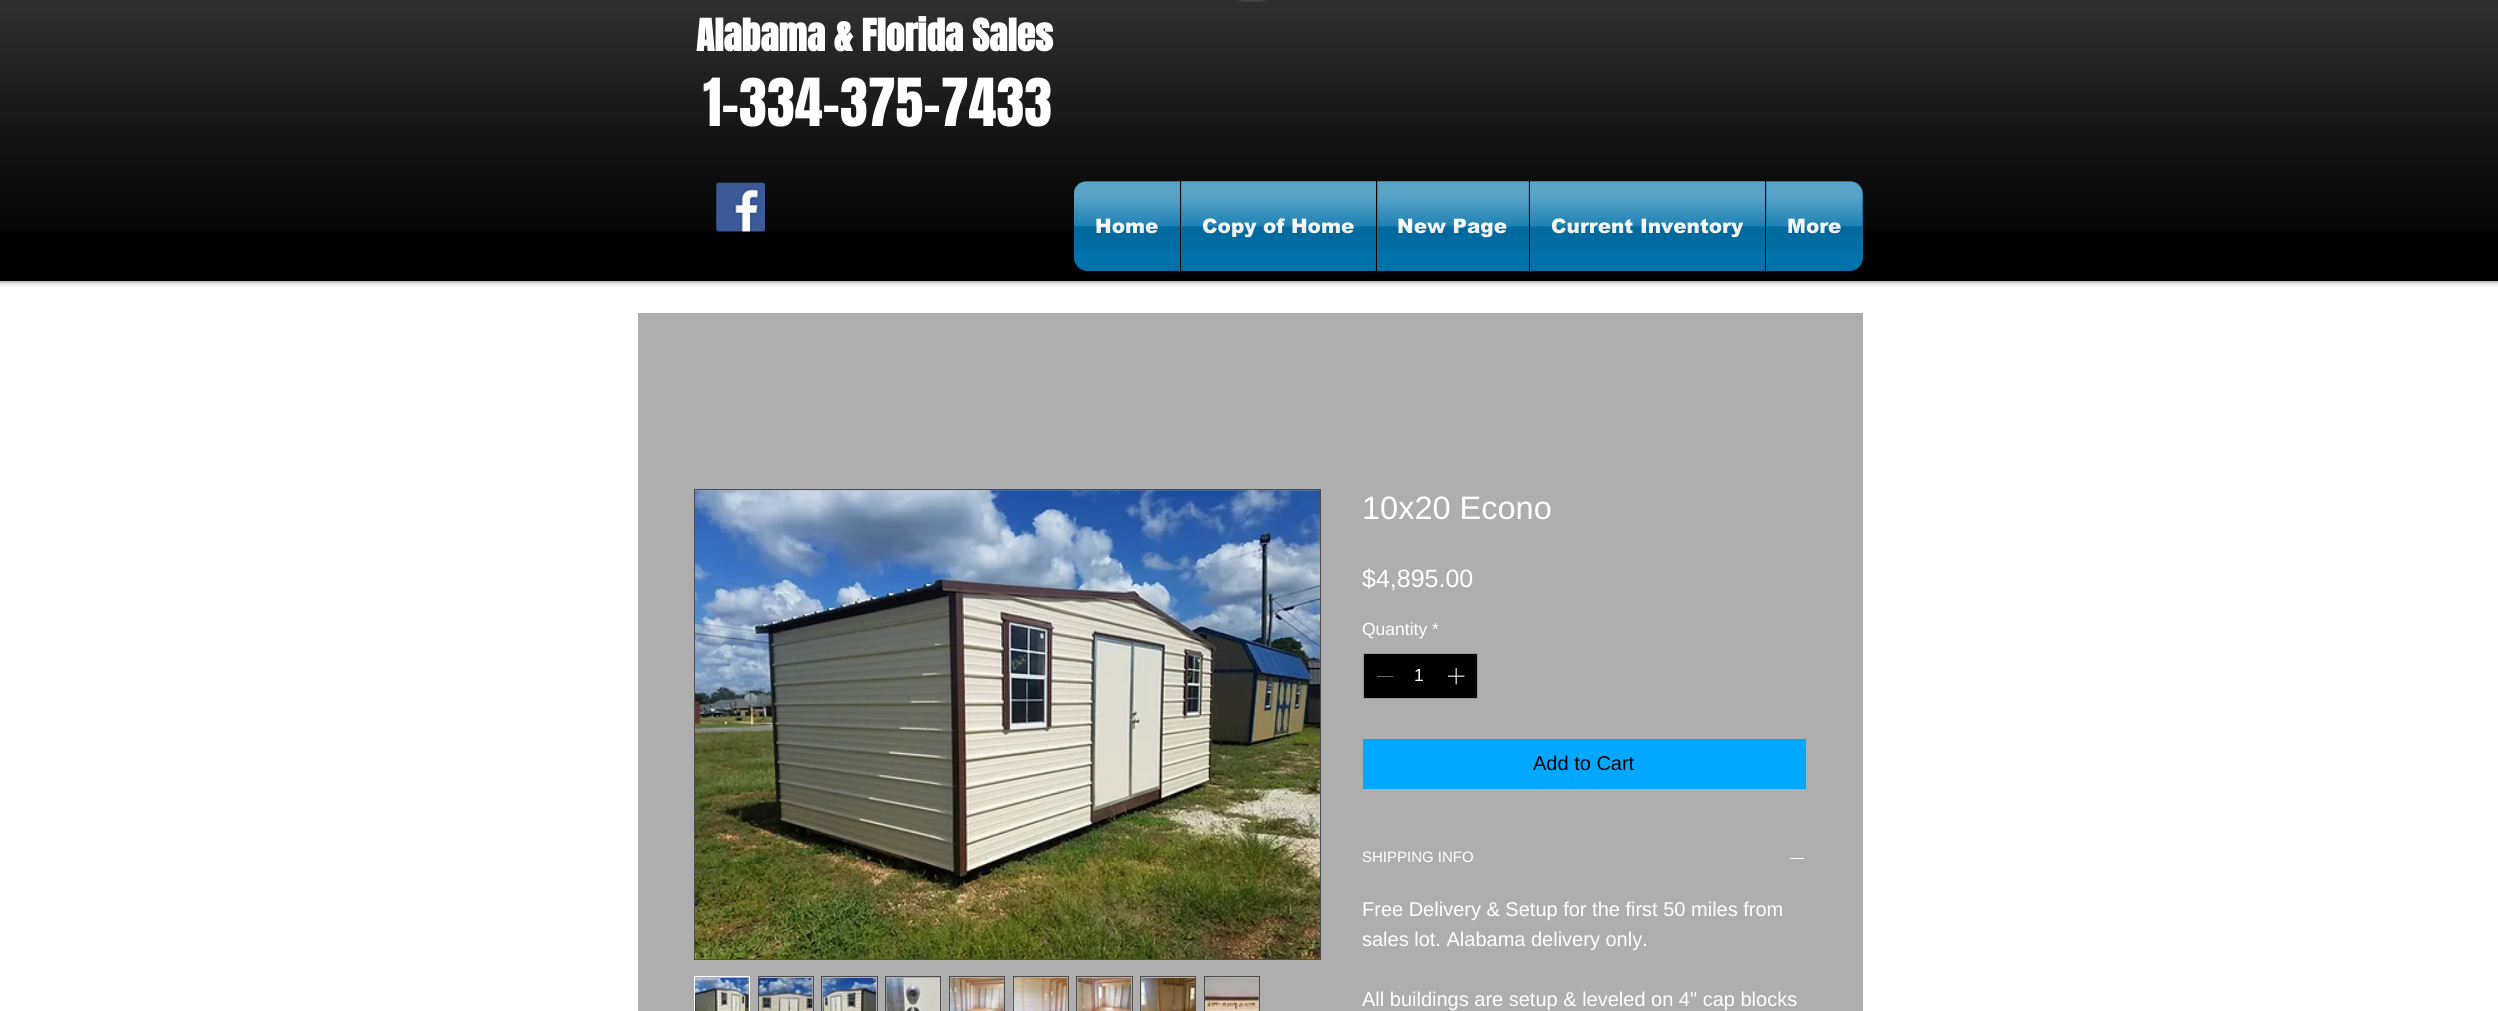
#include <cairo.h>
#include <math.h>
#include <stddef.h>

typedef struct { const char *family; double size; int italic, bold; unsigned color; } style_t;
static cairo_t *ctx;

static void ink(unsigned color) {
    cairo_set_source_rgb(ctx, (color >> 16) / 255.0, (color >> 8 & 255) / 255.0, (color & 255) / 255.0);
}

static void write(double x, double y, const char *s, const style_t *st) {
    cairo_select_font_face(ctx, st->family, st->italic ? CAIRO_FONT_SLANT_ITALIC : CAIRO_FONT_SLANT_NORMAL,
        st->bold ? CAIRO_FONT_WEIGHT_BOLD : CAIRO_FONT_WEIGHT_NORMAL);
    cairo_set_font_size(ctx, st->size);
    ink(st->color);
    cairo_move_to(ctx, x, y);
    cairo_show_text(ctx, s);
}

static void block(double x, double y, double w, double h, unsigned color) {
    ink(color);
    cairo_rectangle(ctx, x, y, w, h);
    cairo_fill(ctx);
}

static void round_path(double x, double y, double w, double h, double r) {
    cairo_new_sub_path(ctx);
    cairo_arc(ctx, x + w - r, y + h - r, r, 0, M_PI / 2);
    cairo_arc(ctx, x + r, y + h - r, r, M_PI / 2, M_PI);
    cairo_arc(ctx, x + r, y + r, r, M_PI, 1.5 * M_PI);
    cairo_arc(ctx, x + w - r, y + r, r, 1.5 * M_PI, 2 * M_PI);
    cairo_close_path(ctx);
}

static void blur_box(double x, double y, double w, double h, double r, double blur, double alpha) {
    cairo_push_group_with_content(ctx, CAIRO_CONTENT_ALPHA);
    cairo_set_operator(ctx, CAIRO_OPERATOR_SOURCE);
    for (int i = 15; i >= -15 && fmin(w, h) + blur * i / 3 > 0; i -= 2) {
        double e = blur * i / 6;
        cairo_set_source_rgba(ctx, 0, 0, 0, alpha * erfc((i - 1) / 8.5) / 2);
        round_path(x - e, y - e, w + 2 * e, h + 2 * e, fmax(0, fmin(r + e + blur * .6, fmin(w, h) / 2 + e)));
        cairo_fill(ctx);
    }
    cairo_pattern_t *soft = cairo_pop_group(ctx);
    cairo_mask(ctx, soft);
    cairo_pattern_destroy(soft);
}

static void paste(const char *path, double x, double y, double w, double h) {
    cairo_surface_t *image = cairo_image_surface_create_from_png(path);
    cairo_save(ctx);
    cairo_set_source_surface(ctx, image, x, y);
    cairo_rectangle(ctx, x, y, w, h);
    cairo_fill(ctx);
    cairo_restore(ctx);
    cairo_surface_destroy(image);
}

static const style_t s1 = {"Anton", 37.5, 0, 1, 0xffffff};
static const style_t s2 = {"Anton", 56.25, 0, 0, 0xffffff};
static const style_t s3 = {"arial Black", 20, 0, 0, 0xffffff};
static const style_t s4 = {"Liberation Sans", 32.5, 0, 0, 0xffffff};
static const style_t s5 = {"Liberation Sans", 25, 0, 0, 0xffffff};
static const style_t s6 = {"Liberation Sans", 17.5, 0, 0, 0xffffff};
static const style_t s7 = {"Liberation Sans", 20, 0, 0, 0x000000};
static const style_t s8 = {"Liberation Sans", 15, 0, 0, 0xffffff};
static const style_t s9 = {"Liberation Sans", 20, 0, 0, 0xffffff};

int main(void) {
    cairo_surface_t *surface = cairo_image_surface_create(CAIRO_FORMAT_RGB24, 2498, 1011);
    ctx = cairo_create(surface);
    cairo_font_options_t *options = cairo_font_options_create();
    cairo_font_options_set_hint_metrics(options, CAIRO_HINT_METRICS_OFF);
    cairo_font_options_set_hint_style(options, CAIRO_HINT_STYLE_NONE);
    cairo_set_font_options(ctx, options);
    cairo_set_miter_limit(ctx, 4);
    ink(0xffffff);
    cairo_paint(ctx);
    ink(0x000000);
    blur_box(0, -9, 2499, 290, 0, 3, 0.6);
    block(0, 0, 2498, 281, 0x000000);
    paste("pic1.png", 0, 0, 2498, 231);
    paste("pic2.png", 1235, 0, 34, 2);
    write(696, 51, "Alabama & Florida Sales", &s1);
    write(703, 126, "1-334-375-7433", &s2);
    paste("pic3.png", 716, 182, 49, 50);
    paste("pic4.png", 1074, 181, 789, 13);
    ink(0x0071a9);
    cairo_new_path(ctx);
    cairo_move_to(ctx, 1087, 181);
    cairo_line_to(ctx, 1180, 181);
    cairo_line_to(ctx, 1180, 271);
    cairo_line_to(ctx, 1087, 271);
    cairo_curve_to(ctx, 1080, 271, 1074, 265, 1074, 258);
    cairo_line_to(ctx, 1074, 194);
    cairo_curve_to(ctx, 1074, 187, 1080, 181, 1087, 181);
    cairo_close_path(ctx);
    cairo_fill(ctx);
    write(1095, 233, "Home", &s3);
    paste("pic5.png", 1074, 181, 106, 70);
    block(1181, 181, 195, 90, 0x0071a9);
    block(1180, 181, 1, 50, 0x000000);
    write(1202, 233, "Copy of Home", &s3);
    paste("pic6.png", 1181, 181, 195, 70);
    block(1377, 181, 152, 90, 0x0071a9);
    block(1376, 181, 1, 50, 0x000000);
    write(1397, 233, "New Page", &s3);
    paste("pic7.png", 1377, 181, 152, 70);
    block(1530, 181, 235, 90, 0x0071a9);
    block(1529, 181, 1, 50, 0x000000);
    write(1551, 233, "Current Inventory", &s3);
    paste("pic8.png", 1530, 181, 235, 70);
    ink(0x0071a9);
    cairo_new_path(ctx);
    cairo_move_to(ctx, 1765, 181);
    cairo_line_to(ctx, 1850, 181);
    cairo_curve_to(ctx, 1857, 181, 1863, 187, 1863, 194);
    cairo_line_to(ctx, 1863, 258);
    cairo_curve_to(ctx, 1863, 265, 1857, 271, 1850, 271);
    cairo_line_to(ctx, 1765, 271);
    cairo_close_path(ctx);
    cairo_fill(ctx);
    block(1765, 181, 1, 90, 0x000000);
    write(1787, 233, "More", &s3);
    paste("pic9.png", 1766, 181, 97, 70);
    block(638, 313, 1225, 698, 0xaeaeae);
    cairo_rectangle(ctx, 694.5, 489.5, 626, 470);
    ink(0x4e4e4e);
    cairo_set_line_width(ctx, 1);
    cairo_stroke(ctx);
    paste("pic10.png", 695, 490, 625, 469);
    cairo_rectangle(ctx, 694.5, 976.5, 55, 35);
    ink(0xffffff);
    cairo_stroke(ctx);
    paste("pic11.png", 695, 978, 54, 33);
    cairo_rectangle(ctx, 758.5, 976.5, 55, 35);
    ink(0x4e4e4e);
    cairo_stroke(ctx);
    paste("pic12.png", 758, 978, 55, 33);
    cairo_rectangle(ctx, 821.5, 976.5, 56, 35);
    cairo_stroke(ctx);
    paste("pic13.png", 822, 978, 55, 33);
    cairo_rectangle(ctx, 885.5, 976.5, 55, 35);
    cairo_stroke(ctx);
    paste("pic14.png", 886, 978, 54, 33);
    cairo_rectangle(ctx, 949.5, 976.5, 55, 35);
    cairo_stroke(ctx);
    paste("pic15.png", 950, 978, 54, 33);
    cairo_rectangle(ctx, 1013.5, 976.5, 55, 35);
    cairo_stroke(ctx);
    paste("pic16.png", 1013, 978, 55, 33);
    cairo_rectangle(ctx, 1076.5, 976.5, 56, 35);
    cairo_stroke(ctx);
    paste("pic17.png", 1077, 978, 55, 33);
    cairo_rectangle(ctx, 1140.5, 976.5, 55, 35);
    cairo_stroke(ctx);
    paste("pic18.png", 1141, 978, 54, 33);
    cairo_rectangle(ctx, 1204.5, 976.5, 55, 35);
    cairo_stroke(ctx);
    paste("pic19.png", 1205, 978, 54, 33);
    write(1362, 519, "10x20 Econo", &s4);
    write(1362, 587, "$4,895.00", &s5);
    write(1362, 635, "Quantity *", &s6);
    ink(0x000000);
    cairo_rectangle(ctx, 1363.5, 653.5, 114, 45);
    cairo_fill_preserve(ctx);
    ink(0x999999);
    cairo_stroke(ctx);
    block(1377, 676, 16, 1, 0x646464);
    write(1414, 681, "1", &s6);
    paste("pic20.png", 1448, 668, 17, 17);
    block(1363, 739, 443, 50, 0x00a9ff);
    write(1533, 770, "Add to Cart", &s7);
    write(1362, 862, "SHIPPING INFO", &s8);
    block(1790, 858, 14, 1, 0xffffff);
    write(1362, 916, "Free Delivery & Setup for the first 50 miles from", &s9);
    write(1362, 946, "sales lot. Alabama delivery only.", &s9);
    write(1362, 1006, "All buildings are setup & leveled on 4\" cap blocks", &s9);
    cairo_surface_write_to_png(surface, "screenshot.png");
    cairo_font_options_destroy(options);
    cairo_destroy(ctx);
    cairo_surface_destroy(surface);
    return 0;
}
